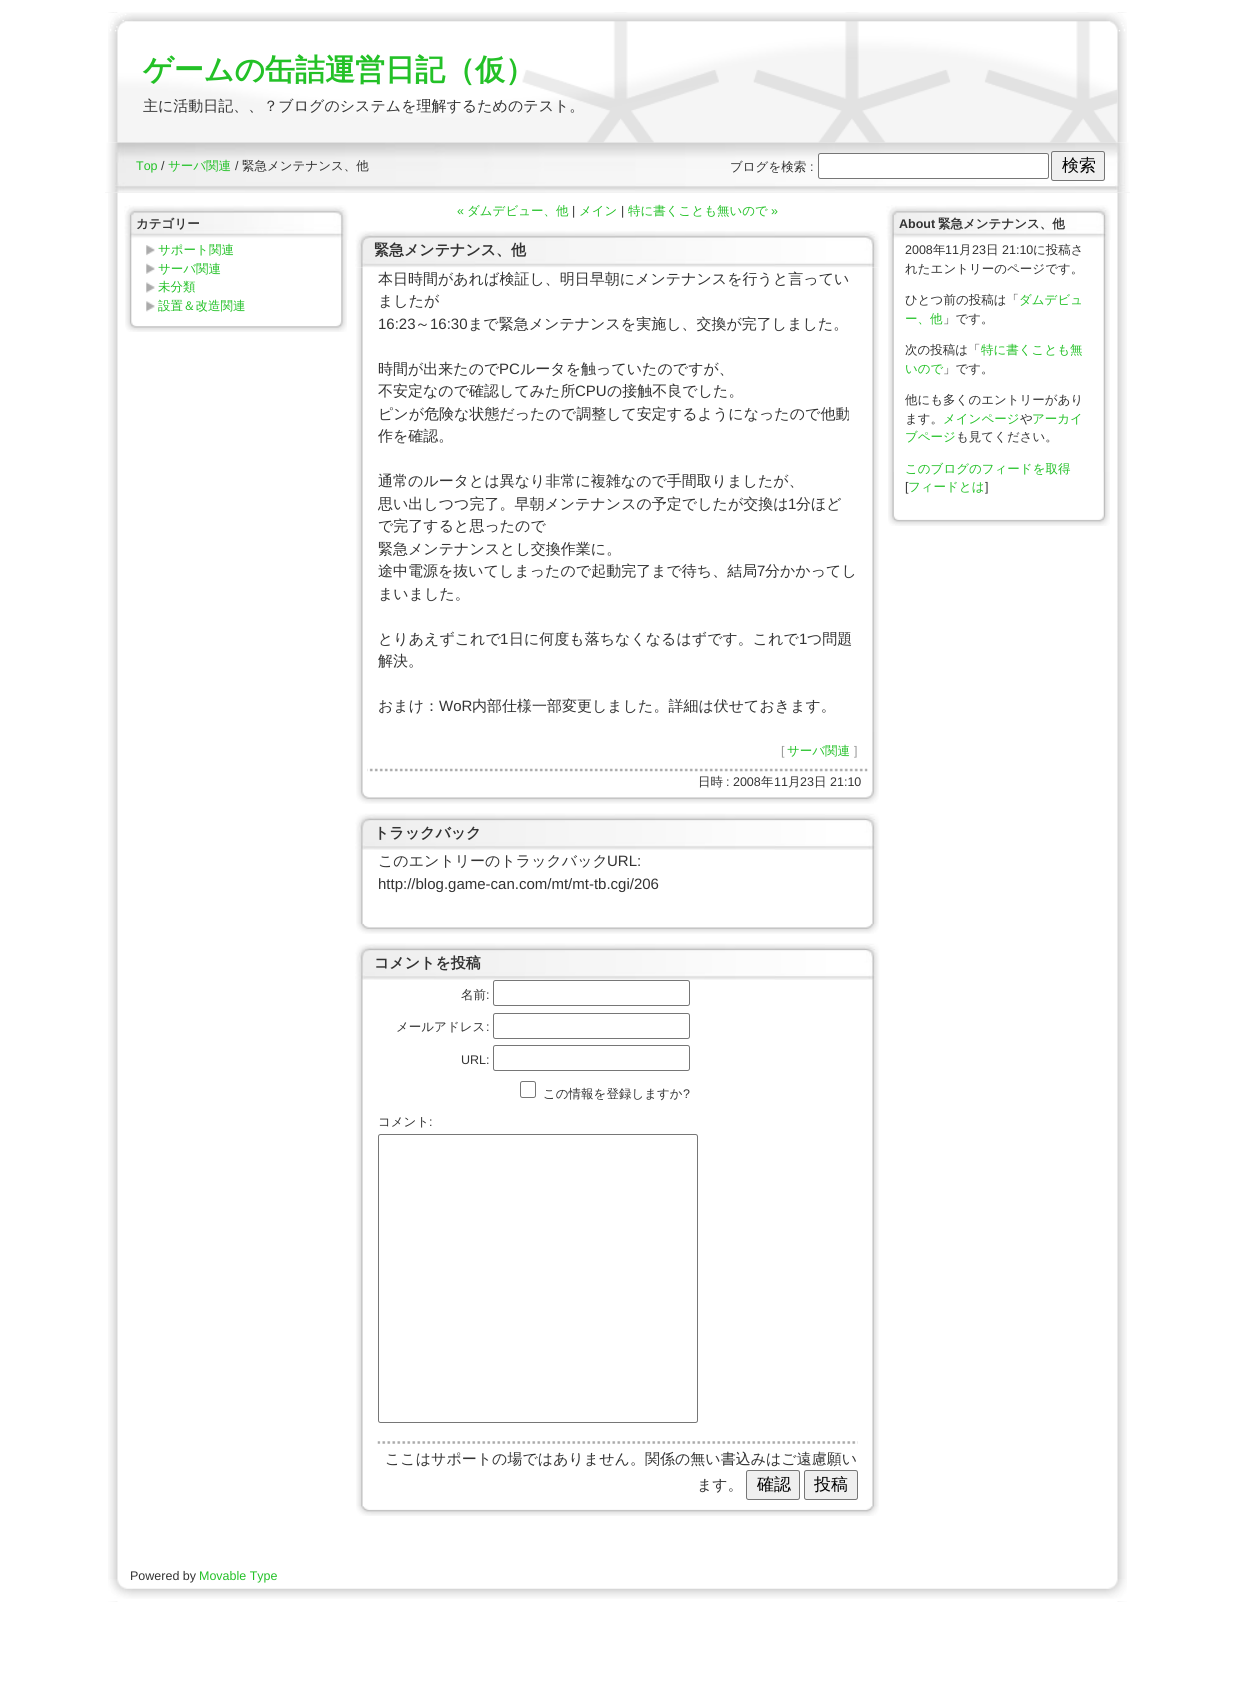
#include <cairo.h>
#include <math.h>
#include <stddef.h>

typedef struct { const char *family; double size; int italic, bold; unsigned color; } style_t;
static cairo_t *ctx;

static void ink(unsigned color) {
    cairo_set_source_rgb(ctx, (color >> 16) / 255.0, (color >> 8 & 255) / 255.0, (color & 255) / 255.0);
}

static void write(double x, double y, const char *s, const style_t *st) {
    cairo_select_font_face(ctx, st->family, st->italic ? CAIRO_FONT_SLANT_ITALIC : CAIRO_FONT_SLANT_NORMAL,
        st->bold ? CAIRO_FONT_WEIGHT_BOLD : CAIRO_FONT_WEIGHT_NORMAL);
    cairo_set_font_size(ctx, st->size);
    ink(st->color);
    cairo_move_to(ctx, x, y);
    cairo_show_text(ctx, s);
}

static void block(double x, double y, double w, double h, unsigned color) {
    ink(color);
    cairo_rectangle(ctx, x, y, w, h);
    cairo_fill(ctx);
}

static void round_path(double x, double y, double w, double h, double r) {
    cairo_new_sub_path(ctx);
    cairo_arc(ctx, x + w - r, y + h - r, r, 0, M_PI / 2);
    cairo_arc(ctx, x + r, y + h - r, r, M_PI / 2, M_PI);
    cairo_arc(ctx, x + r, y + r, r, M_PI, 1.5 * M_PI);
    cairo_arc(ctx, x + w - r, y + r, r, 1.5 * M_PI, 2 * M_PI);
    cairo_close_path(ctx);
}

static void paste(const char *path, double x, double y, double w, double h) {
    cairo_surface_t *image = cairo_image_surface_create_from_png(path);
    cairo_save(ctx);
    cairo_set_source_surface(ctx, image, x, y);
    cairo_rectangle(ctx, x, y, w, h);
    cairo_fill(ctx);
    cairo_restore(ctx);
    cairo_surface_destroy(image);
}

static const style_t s1 = {"WenQuanYi Zen Hei", 30, 0, 1, 0x23c127};
static const style_t s2 = {"WenQuanYi Zen Hei Medium", 15, 0, 0, 0x333333};
static const style_t s3 = {"Liberation Sans", 12.5, 0, 0, 0x23c127};
static const style_t s4 = {"Liberation Sans", 12.5, 0, 0, 0x333333};
static const style_t s5 = {"WenQuanYi Zen Hei Medium", 12.5, 0, 0, 0x23c127};
static const style_t s6 = {"WenQuanYi Zen Hei Medium", 12.5, 0, 0, 0x333333};
static const style_t s7 = {"WenQuanYi Zen Hei Medium", 17, 0, 0, 0x000000};
static const style_t s8 = {"WenQuanYi Zen Hei", 12.5, 0, 1, 0x333333};
static const style_t s9 = {"WenQuanYi Zen Hei", 15, 0, 1, 0x333333};
static const style_t s10 = {"Liberation Sans", 15, 0, 0, 0x333333};
static const style_t s11 = {"Liberation Sans", 12.5, 0, 0, 0x999999};
static const style_t s12 = {"Liberation Sans", 12.5, 0, 1, 0x333333};

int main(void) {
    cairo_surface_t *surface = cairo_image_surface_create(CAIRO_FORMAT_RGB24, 1234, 1703);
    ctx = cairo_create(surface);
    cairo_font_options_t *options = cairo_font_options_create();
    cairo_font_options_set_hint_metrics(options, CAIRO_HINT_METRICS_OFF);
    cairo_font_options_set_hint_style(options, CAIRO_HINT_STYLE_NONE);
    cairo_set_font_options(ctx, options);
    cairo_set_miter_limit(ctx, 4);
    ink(0xffffff);
    cairo_paint(ctx);
    paste("pic1.png", 108, 12, 1019, 1590);
    block(108, 13, 1019, 130, 0xffffff);
    paste("pic2.png", 117, 12, 1001, 131);
    paste("pic3.png", 108, 12, 1019, 131);
    write(143, 80, "ゲームの缶詰運営日記（仮）", &s1);
    write(143, 111, "主に活動日記、、？ブログのシステムを理解するためのテスト。", &s2);
    block(105, 192, 1025, 1, 0xeeeeee);
    paste("pic4.png", 105, 142, 1025, 51);
    write(136, 170, "Top", &s3);
    write(161, 170, "/", &s4);
    write(168, 170, "サーバ関連", &s5);
    write(235, 170, "/", &s4);
    write(242, 170, "緊急メンテナンス、他", &s6);
    write(730, 171, "ブログを検索", &s6);
    write(810, 171, ":", &s4);
    ink(0xffffff);
    round_path(818.5, 153.5, 230, 25, 2);
    cairo_fill_preserve(ctx);
    ink(0x767676);
    cairo_set_line_width(ctx, 1);
    cairo_stroke(ctx);
    ink(0xefefef);
    round_path(1051.5, 151.5, 53, 29, 2);
    cairo_fill_preserve(ctx);
    ink(0x767676);
    cairo_stroke(ctx);
    write(1062, 171, "検索", &s7);
    paste("pic5.png", 125, 278, 222, 54);
    paste("pic6.png", 124, 205, 225, 35);
    write(136, 228, "カテゴリー", &s8);
    paste("pic7.png", 125, 240, 222, 38);
    paste("pic8.png", 146, 245, 9, 11);
    write(158, 254, "サポート関連", &s5);
    paste("pic9.png", 146, 263, 9, 11);
    write(158, 273, "サーバ関連", &s5);
    paste("pic10.png", 146, 282, 9, 11);
    write(158, 291, "未分類", &s5);
    paste("pic11.png", 146, 301, 9, 11);
    write(158, 310, "設置＆改造関連", &s5);
    write(457, 215, "«", &s3);
    write(467, 215, "ダムデビュー、他", &s5);
    write(572, 215, "|", &s4);
    write(579, 215, "メイン", &s5);
    write(621, 215, "|", &s4);
    write(628, 215, "特に書くことも無いので", &s5);
    write(771, 215, "»", &s3);
    paste("pic12.png", 356, 732, 523, 72);
    paste("pic13.png", 355, 230, 525, 38);
    write(374, 255, "緊急メンテナンス、他", &s9);
    paste("pic14.png", 355, 267, 525, 465);
    write(378, 284, "本日時間があれば検証し、明日早朝にメンテナンスを行うと言ってい", &s2);
    write(378, 306, "ましたが", &s2);
    write(378, 329, "16:23", &s10);
    write(415, 329, "～", &s2);
    write(430, 329, "16:30", &s10);
    write(468, 329, "まで緊急メンテナンスを実施し、交換が完了しました。", &s2);
    write(378, 374, "時間が出来たので", &s2);
    write(499, 374, "PC", &s10);
    write(520, 374, "ルータを触っていたのですが、", &s2);
    write(378, 396, "不安定なので確認してみた所", &s2);
    write(575, 396, "CPU", &s10);
    write(607, 396, "の接触不良でした。", &s2);
    write(378, 419, "ピンが危険な状態だったので調整して安定するようになったので他動", &s2);
    write(378, 441, "作を確認。", &s2);
    write(378, 486, "通常のルータとは異なり非常に複雑なので手間取りましたが、", &s2);
    write(378, 509, "思い出しつつ完了。早朝メンテナンスの予定でしたが交換は", &s2);
    write(788, 509, "1", &s10);
    write(796, 509, "分ほど", &s2);
    write(378, 531, "で完了すると思ったので", &s2);
    write(378, 554, "緊急メンテナンスとし交換作業に。", &s2);
    write(378, 576, "途中電源を抜いてしまったので起動完了まで待ち、結局", &s2);
    write(757, 576, "7", &s10);
    write(765, 576, "分かかってし", &s2);
    write(378, 599, "まいました。", &s2);
    write(378, 644, "とりあえずこれで", &s2);
    write(500, 644, "1", &s10);
    write(509, 644, "日に何度も落ちなくなるはずです。これで", &s2);
    write(799, 644, "1", &s10);
    write(807, 644, "つ問題", &s2);
    write(378, 666, "解決。", &s2);
    write(378, 711, "おまけ：", &s2);
    write(439, 711, "WoR", &s10);
    write(472, 711, "内部仕様一部変更しました。詳細は伏せておきます。", &s2);
    write(781, 755, "[", &s11);
    write(787, 755, "サーバ関連", &s5);
    write(854, 755, "]", &s11);
    paste("pic15.png", 367, 768, 501, 4);
    write(698, 786, "日時", &s6);
    write(726, 786, ": 2008", &s4);
    write(761, 786, "年", &s6);
    write(774, 786, "11", &s4);
    write(788, 786, "月", &s6);
    write(800, 786, "23", &s4);
    write(814, 786, "日", &s6);
    write(830, 786, "21:10", &s4);
    paste("pic16.png", 356, 923, 523, 11);
    paste("pic17.png", 355, 813, 525, 37);
    write(374, 838, "トラックバック", &s9);
    paste("pic18.png", 356, 850, 523, 74);
    write(378, 866, "このエントリーのトラックバック", &s2);
    write(607, 866, "URL:", &s10);
    write(378, 889, "http://blog.game-can.com/mt/mt-tb.cgi/206", &s10);
    paste("pic19.png", 356, 1506, 523, 10);
    paste("pic17.png", 355, 943, 525, 37);
    write(374, 968, "コメントを投稿", &s9);
    paste("pic20.png", 356, 980, 523, 527);
    write(461, 999, "名前", &s6);
    write(486, 999, ":", &s4);
    round_path(493.5, 980.5, 196, 25, 2);
    ink(0x767676);
    cairo_stroke(ctx);
    write(396, 1031, "メールアドレス", &s6);
    write(486, 1031, ":", &s4);
    round_path(493.5, 1013.5, 196, 25, 2);
    ink(0x767676);
    cairo_stroke(ctx);
    write(461, 1064, "URL:", &s4);
    round_path(493.5, 1045.5, 196, 25, 2);
    ink(0x767676);
    cairo_stroke(ctx);
    round_path(520.5, 1081.5, 15, 16, 2);
    cairo_stroke(ctx);
    write(543, 1098, "この情報を登録しますか", &s6);
    write(683, 1098, "?", &s4);
    write(378, 1126, "コメント", &s6);
    write(429, 1126, ":", &s4);
    round_path(378.5, 1134.5, 319, 288, 2);
    ink(0x767676);
    cairo_stroke(ctx);
    paste("pic21.png", 377, 1441, 481, 3);
    write(385, 1464, "ここはサポートの場ではありません。関係の無い書込みはご遠慮願い", &s2);
    write(697, 1490, "ます。", &s2);
    ink(0xefefef);
    round_path(746.5, 1470.5, 53, 29, 2);
    cairo_fill_preserve(ctx);
    ink(0x767676);
    cairo_stroke(ctx);
    write(757, 1490, "確認", &s7);
    ink(0xefefef);
    round_path(804.5, 1470.5, 53, 29, 2);
    cairo_fill_preserve(ctx);
    ink(0x767676);
    cairo_stroke(ctx);
    write(814, 1490, "投稿", &s7);
    paste("pic22.png", 888, 472, 222, 54);
    paste("pic23.png", 886, 205, 225, 35);
    write(899, 228, "About", &s12);
    write(938, 228, "緊急メンテナンス、他", &s8);
    paste("pic24.png", 888, 240, 222, 232);
    write(905, 254, "2008", &s4);
    write(933, 254, "年", &s6);
    write(945, 254, "11", &s4);
    write(959, 254, "月", &s6);
    write(972, 254, "23", &s4);
    write(986, 254, "日", &s6);
    write(1002, 254, "21:10", &s4);
    write(1033, 254, "に投稿さ", &s6);
    write(905, 273, "れたエントリーのページです。", &s6);
    write(905, 304, "ひとつ前の投稿は「", &s6);
    write(1019, 304, "ダムデビュ", &s5);
    write(905, 323, "ー、他", &s5);
    write(943, 323, "」です。", &s6);
    write(905, 354, "次の投稿は「", &s6);
    write(981, 354, "特に書くことも無", &s5);
    write(905, 373, "いので", &s5);
    write(943, 373, "」です。", &s6);
    write(905, 404, "他にも多くのエントリーがあり", &s6);
    write(905, 423, "ます。", &s6);
    write(943, 423, "メインページ", &s5);
    write(1020, 423, "や", &s6);
    write(1032, 423, "アーカイ", &s5);
    write(905, 441, "ブページ", &s5);
    write(956, 441, "も見てください。", &s6);
    write(905, 473, "このブログのフィードを取得", &s5);
    write(905, 491, "[", &s4);
    write(908, 491, "フィードとは", &s5);
    write(985, 491, "]", &s4);
    paste("pic25.png", 108, 1579, 1019, 22);
    write(130, 1580, "Powered by", &s4);
    write(199, 1580, "Movable Type", &s3);
    cairo_surface_write_to_png(surface, "screenshot.png");
    cairo_font_options_destroy(options);
    cairo_destroy(ctx);
    cairo_surface_destroy(surface);
    return 0;
}
